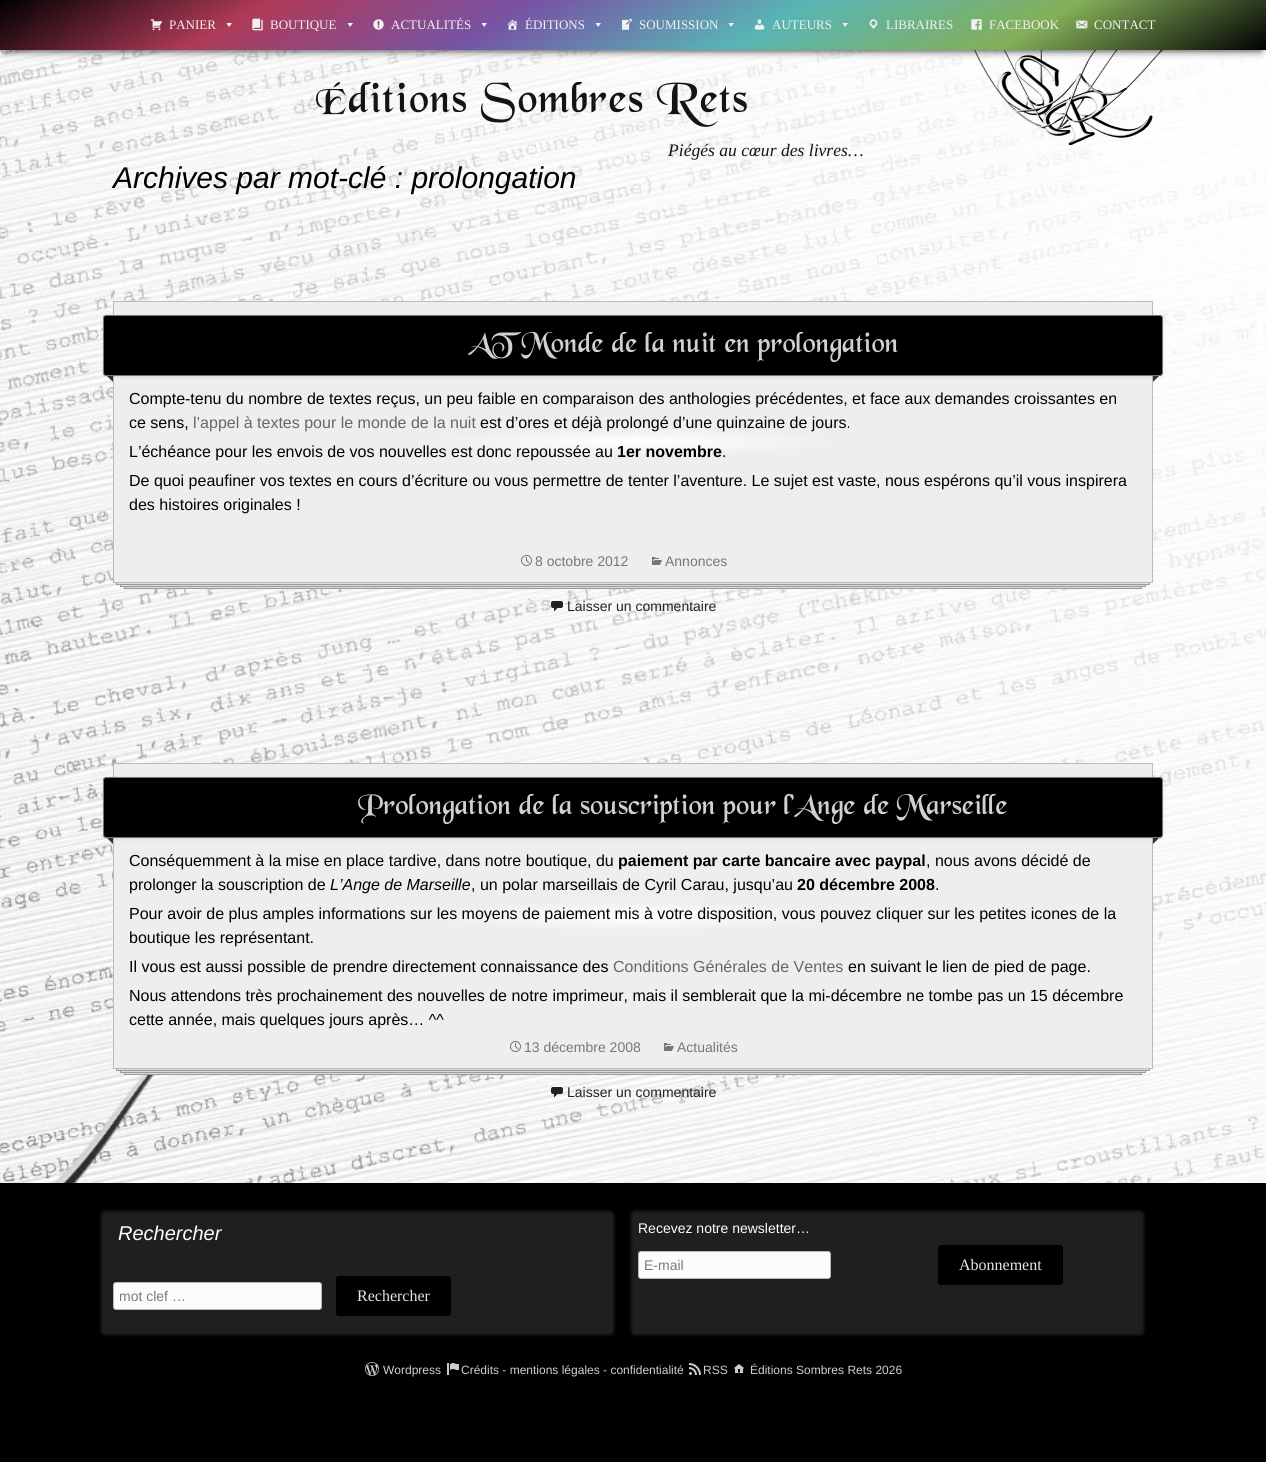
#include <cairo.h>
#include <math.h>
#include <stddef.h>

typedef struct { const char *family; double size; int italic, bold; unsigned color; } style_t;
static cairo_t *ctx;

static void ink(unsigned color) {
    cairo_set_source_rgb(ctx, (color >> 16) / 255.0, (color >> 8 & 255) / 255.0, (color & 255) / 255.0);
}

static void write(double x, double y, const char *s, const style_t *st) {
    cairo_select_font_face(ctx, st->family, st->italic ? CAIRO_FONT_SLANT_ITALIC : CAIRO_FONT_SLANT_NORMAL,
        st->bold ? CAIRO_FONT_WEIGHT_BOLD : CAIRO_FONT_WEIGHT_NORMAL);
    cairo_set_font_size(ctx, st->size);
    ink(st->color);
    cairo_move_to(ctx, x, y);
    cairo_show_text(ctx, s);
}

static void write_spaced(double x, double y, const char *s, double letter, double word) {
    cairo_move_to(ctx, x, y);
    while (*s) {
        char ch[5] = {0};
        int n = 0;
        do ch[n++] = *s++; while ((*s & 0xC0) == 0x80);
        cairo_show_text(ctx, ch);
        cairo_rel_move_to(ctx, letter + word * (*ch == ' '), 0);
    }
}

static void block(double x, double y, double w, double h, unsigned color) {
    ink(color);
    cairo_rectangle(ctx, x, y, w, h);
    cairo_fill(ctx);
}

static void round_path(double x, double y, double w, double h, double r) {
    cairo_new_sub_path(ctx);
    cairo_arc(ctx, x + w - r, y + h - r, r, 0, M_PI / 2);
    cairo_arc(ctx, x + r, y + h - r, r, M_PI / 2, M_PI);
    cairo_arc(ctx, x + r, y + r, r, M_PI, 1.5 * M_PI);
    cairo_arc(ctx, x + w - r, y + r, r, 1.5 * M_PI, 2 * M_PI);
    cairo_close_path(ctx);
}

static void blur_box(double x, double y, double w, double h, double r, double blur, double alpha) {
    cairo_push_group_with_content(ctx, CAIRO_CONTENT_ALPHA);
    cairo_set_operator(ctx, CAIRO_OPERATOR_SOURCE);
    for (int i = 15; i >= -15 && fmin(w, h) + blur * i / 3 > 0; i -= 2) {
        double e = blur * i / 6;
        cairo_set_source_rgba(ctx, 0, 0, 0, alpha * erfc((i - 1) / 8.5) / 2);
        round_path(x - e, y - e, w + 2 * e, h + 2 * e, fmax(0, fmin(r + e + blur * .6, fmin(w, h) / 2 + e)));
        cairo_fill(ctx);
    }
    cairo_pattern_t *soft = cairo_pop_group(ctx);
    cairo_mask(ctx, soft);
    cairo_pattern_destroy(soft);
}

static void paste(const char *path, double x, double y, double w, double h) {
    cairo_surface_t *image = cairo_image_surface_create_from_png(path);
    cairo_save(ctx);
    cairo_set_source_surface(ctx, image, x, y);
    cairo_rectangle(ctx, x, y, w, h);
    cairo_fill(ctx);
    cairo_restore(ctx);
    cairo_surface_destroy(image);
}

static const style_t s1 = {"Liberation Sans", 30, 1, 0, 0x000000};
static const style_t s2 = {"Liberation Serif", 13, 0, 0, 0xf1f1f1};
static const style_t s3 = {"Liberation Serif", 17.6, 1, 0, 0x141412};
static const style_t s4 = {"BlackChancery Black", 30, 0, 0, 0xd0d0d0};
static const style_t s5 = {"Liberation Sans", 16, 0, 0, 0x000000};
static const style_t s6 = {"Liberation Sans", 16, 0, 0, 0x666666};
static const style_t s7 = {"Liberation Sans", 16, 0, 1, 0x000000};
static const style_t s8 = {"Liberation Sans", 14, 0, 0, 0x777777};
static const style_t s9 = {"Liberation Sans", 14, 0, 0, 0x222222};
static const style_t s10 = {"Liberation Sans", 16, 1, 0, 0x000000};
static const style_t s11 = {"Liberation Sans", 20, 1, 0, 0xffffff};
static const style_t s12 = {"Liberation Sans", 14, 0, 0, 0x7d7b6d};
static const style_t s13 = {"Liberation Serif", 16, 0, 0, 0xe6e6e6};
static const style_t s14 = {"Liberation Sans", 14, 0, 0, 0xffffff};
static const style_t s15 = {"Liberation Sans", 12, 0, 0, 0xd0d0d0};

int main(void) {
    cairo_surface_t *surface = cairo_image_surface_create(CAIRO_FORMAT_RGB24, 1266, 1462);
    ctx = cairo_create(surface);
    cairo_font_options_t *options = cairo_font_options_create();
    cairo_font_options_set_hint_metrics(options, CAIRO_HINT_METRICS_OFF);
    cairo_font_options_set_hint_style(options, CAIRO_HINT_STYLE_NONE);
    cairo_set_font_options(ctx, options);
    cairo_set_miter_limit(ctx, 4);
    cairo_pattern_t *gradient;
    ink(0x000000);
    cairo_paint(ctx);
    paste("pic1.png", 0, 50, 1266, 1133);
    write(113, 188, "Archives par mot-clé : prolongation", &s1);
    paste("pic2.png", 381, 165, 4, 1);
    paste("pic12.png", 973, 50, 190, 96);
    ink(0x000000);
    blur_box(5, 11, 1256, 40, 0, 4, 0.75);
    gradient = cairo_pattern_create_linear(802, 318, 464, -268);
    cairo_pattern_add_color_stop_rgba(gradient, 0, 0, 0, 0, 1);
    cairo_pattern_add_color_stop_rgba(gradient, 0.2, 0.518, 0.686, 0.349, 1);
    cairo_pattern_add_color_stop_rgba(gradient, 0.4, 0.345, 0.71, 0.71, 1);
    cairo_pattern_add_color_stop_rgba(gradient, 0.6, 0.463, 0.329, 0.647, 1);
    cairo_pattern_add_color_stop_rgba(gradient, 0.8, 0.686, 0.227, 0.341, 1);
    cairo_pattern_add_color_stop_rgba(gradient, 1, 0, 0, 0, 1);
    cairo_set_source(ctx, gradient);
    cairo_pattern_destroy(gradient);
    cairo_rectangle(ctx, 0, 0, 1266, 50);
    cairo_fill(ctx);
    paste("pic3.png", 150, 19, 13, 12);
    write(169, 29, "PANIER", &s2);
    cairo_new_path(ctx);
    cairo_move_to(ctx, 232, 23);
    cairo_line_to(ctx, 229, 27);
    cairo_line_to(ctx, 226.5, 23);
    cairo_close_path(ctx);
    cairo_fill(ctx);
    paste("pic4.png", 252, 18, 11, 13);
    write(270, 29, "BOUTIQUE", &s2);
    cairo_new_path(ctx);
    cairo_move_to(ctx, 353, 23);
    cairo_line_to(ctx, 350, 27);
    cairo_line_to(ctx, 347.5, 23);
    cairo_close_path(ctx);
    cairo_fill(ctx);
    paste("pic5.png", 373, 19, 11, 11);
    write(391, 29, "ACTUALITÉS", &s2);
    cairo_new_path(ctx);
    cairo_move_to(ctx, 487, 23);
    cairo_line_to(ctx, 484, 27);
    cairo_line_to(ctx, 481.5, 23);
    cairo_close_path(ctx);
    cairo_fill(ctx);
    paste("pic6.png", 507, 19, 11, 11);
    write(525, 29, "ÉDITIONS", &s2);
    cairo_new_path(ctx);
    cairo_move_to(ctx, 601, 23);
    cairo_line_to(ctx, 598, 27);
    cairo_line_to(ctx, 595.5, 23);
    cairo_close_path(ctx);
    cairo_fill(ctx);
    paste("pic7.png", 621, 18, 11, 12);
    write(639, 29, "SOUMISSION", &s2);
    cairo_new_path(ctx);
    cairo_move_to(ctx, 734, 23);
    cairo_line_to(ctx, 731, 27);
    cairo_line_to(ctx, 728.5, 23);
    cairo_close_path(ctx);
    cairo_fill(ctx);
    paste("pic8.png", 754, 19, 11, 11);
    write(772, 29, "AUTEURS", &s2);
    cairo_new_path(ctx);
    cairo_move_to(ctx, 848, 23);
    cairo_line_to(ctx, 845, 27);
    cairo_line_to(ctx, 842.5, 23);
    cairo_close_path(ctx);
    cairo_fill(ctx);
    paste("pic9.png", 869, 19, 9, 11);
    write(886, 29, "LIBRAIRES", &s2);
    paste("pic10.png", 971, 19, 11, 11);
    write(989, 29, "FACEBOOK", &s2);
    paste("pic11.png", 1076, 20, 12, 9);
    write(1094, 29, "CONTACT", &s2);
    cairo_select_font_face(ctx, "BlackChancery Black", CAIRO_FONT_SLANT_NORMAL, CAIRO_FONT_WEIGHT_NORMAL);
    cairo_set_font_size(ctx, 45);
    ink(0x141412);
    write_spaced(316, 112, "Éditions Sombres Rets", 1.3, 0);
    write(668, 156, "Piégés au cœur des livres…", &s3);
    ink(0x333333);
    cairo_new_path(ctx);
    cairo_move_to(ctx, 104, 373);
    cairo_line_to(ctx, 124, 373);
    cairo_line_to(ctx, 114, 383);
    cairo_close_path(ctx);
    cairo_fill(ctx);
    cairo_new_path(ctx);
    cairo_move_to(ctx, 1142, 373);
    cairo_line_to(ctx, 1162, 373);
    cairo_line_to(ctx, 1152, 383);
    cairo_close_path(ctx);
    cairo_fill(ctx);
    gradient = cairo_pattern_create_radial(0, 0, 0, 0, 0, 1);
    cairo_pattern_set_matrix(gradient, &(cairo_matrix_t){1.0 / 208, 0, 0, 1.0 / 14, -1.0 * 633 / 208, -1.0 * 442 / 14});
    cairo_pattern_add_color_stop_rgba(gradient, 0, 1, 1, 1, 1);
    cairo_pattern_add_color_stop_rgba(gradient, 1, 0.933, 0.933, 0.933, 1);
    cairo_set_source(ctx, gradient);
    cairo_pattern_destroy(gradient);
    cairo_rectangle(ctx, 114, 302, 1038, 280);
    cairo_fill(ctx);
    cairo_rectangle(ctx, 113.5, 301.5, 1039, 281);
    ink(0xbbbbbb);
    cairo_set_line_width(ctx, 1);
    cairo_stroke(ctx);
    ink(0x000000);
    blur_box(103, 316, 1060, 61, 3, 1.5, 0.1);
    ink(0x000000);
    round_path(103.5, 315.5, 1059, 60, 2.5);
    cairo_fill_preserve(ctx);
    ink(0x777777);
    cairo_stroke(ctx);
    write(468, 352, "AT Monde de la nuit en prolongation", &s4);
    block(124, 587, 1018, 2, 0x999999);
    block(125, 587, 1016, 1, 0xdddddd);
    block(120, 585, 1026, 2, 0x999999);
    block(121, 585, 1024, 1, 0xdddddd);
    block(116, 583, 1034, 2, 0x999999);
    block(117, 583, 1032, 1, 0xdddddd);
    write(129, 404, "Compte-tenu du nombre de textes reçus, un peu faible en comparaison des anthologies précédentes, et face aux demandes croissantes en", &s5);
    write(129, 428, "ce sens,", &s5);
    write(193, 428, "l’appel à textes pour le monde de la nuit", &s6);
    write(480, 428, "est d’ores et déjà prolongé d’une quinzaine de jours.", &s5);
    write(129, 457, "L’échéance pour les envois de vos nouvelles est donc repoussée au", &s5);
    write(617, 457, "1er novembre", &s7);
    write(722, 457, ".", &s5);
    write(129, 486, "De quoi peaufiner vos textes en cours d’écriture ou vous permettre de tenter l’aventure. Le sujet est vaste, nous espérons qu’il vous inspirera", &s5);
    write(129, 510, "des histoires originales !", &s5);
    paste("pic13.png", 521, 555, 11, 11);
    write(535, 566, "8 octobre 2012", &s8);
    paste("pic14.png", 652, 557, 10, 8);
    write(665, 566, "Annonces", &s8);
    paste("pic15.png", 551, 601, 12, 11);
    write(567, 611, "Laisser un commentaire", &s9);
    ink(0x333333);
    cairo_new_path(ctx);
    cairo_move_to(ctx, 104, 835);
    cairo_line_to(ctx, 124, 835);
    cairo_line_to(ctx, 114, 845);
    cairo_close_path(ctx);
    cairo_fill(ctx);
    cairo_new_path(ctx);
    cairo_move_to(ctx, 1142, 835);
    cairo_line_to(ctx, 1162, 835);
    cairo_line_to(ctx, 1152, 845);
    cairo_close_path(ctx);
    cairo_fill(ctx);
    gradient = cairo_pattern_create_radial(0, 0, 0, 0, 0, 1);
    cairo_pattern_set_matrix(gradient, &(cairo_matrix_t){1.0 / 208, 0, 0, 1.0 / 15, -1.0 * 633 / 208, -1.0 * 916 / 15});
    cairo_pattern_add_color_stop_rgba(gradient, 0, 1, 1, 1, 1);
    cairo_pattern_add_color_stop_rgba(gradient, 1, 0.933, 0.933, 0.933, 1);
    cairo_set_source(ctx, gradient);
    cairo_pattern_destroy(gradient);
    cairo_rectangle(ctx, 114, 764, 1038, 304);
    cairo_fill(ctx);
    cairo_rectangle(ctx, 113.5, 763.5, 1039, 305);
    ink(0xbbbbbb);
    cairo_stroke(ctx);
    ink(0x000000);
    blur_box(103, 778, 1060, 61, 3, 1.5, 0.1);
    ink(0x000000);
    round_path(103.5, 777.5, 1059, 60, 2.5);
    cairo_fill_preserve(ctx);
    ink(0x777777);
    cairo_stroke(ctx);
    write(358, 814, "Prolongation de la souscription pour l’Ange de Marseille", &s4);
    block(124, 1073, 1018, 2, 0x999999);
    block(125, 1073, 1016, 1, 0xdddddd);
    block(120, 1071, 1026, 2, 0x999999);
    block(121, 1071, 1024, 1, 0xdddddd);
    block(116, 1069, 1034, 2, 0x999999);
    block(117, 1069, 1032, 1, 0xdddddd);
    write(129, 866, "Conséquemment à la mise en place tardive, dans notre boutique, du", &s5);
    write(618, 866, "paiement par carte bancaire avec paypal", &s7);
    write(926, 866, ", nous avons décidé de", &s5);
    write(129, 890, "prolonger la souscription de", &s5);
    write(330, 890, "L’Ange de Marseille", &s10);
    write(471, 890, ", un polar marseillais de Cyril Carau, jusqu’au", &s5);
    write(797, 890, "20 décembre 2008", &s7);
    write(935, 890, ".", &s5);
    write(129, 919, "Pour avoir de plus amples informations sur les moyens de paiement mis à votre disposition, vous pouvez cliquer sur les petites icones de la", &s5);
    write(129, 943, "boutique les représentant.", &s5);
    write(129, 972, "Il vous est aussi possible de prendre directement connaissance des", &s5);
    write(613, 972, "Conditions Générales de Ventes", &s6);
    write(848, 972, "en suivant le lien de pied de page.", &s5);
    write(129, 1001, "Nous attendons très prochainement des nouvelles de notre imprimeur, mais il semblerait que la mi-décembre ne tombe pas un 15 décembre", &s5);
    write(129, 1025, "cette année, mais quelques jours après… ^^", &s5);
    paste("pic13.png", 510, 1041, 11, 11);
    write(524, 1052, "13 décembre 2008", &s8);
    paste("pic14.png", 664, 1043, 10, 8);
    write(677, 1052, "Actualités", &s8);
    paste("pic16.png", 551, 1087, 12, 11);
    write(567, 1097, "Laisser un commentaire", &s9);
    ink(0x1f1f1f);
    blur_box(101, 1211, 513, 124, 4, 1.5, 1);
    write(118, 1240, "Rechercher", &s11);
    ink(0xfcfcfc);
    round_path(113.5, 1282.5, 208, 27, 2.5);
    cairo_fill_preserve(ctx);
    ink(0xb7b7b7);
    cairo_stroke(ctx);
    write(119, 1301, "mot clef …", &s12);
    ink(0x000000);
    round_path(336.5, 1276.5, 114, 39, 2.5);
    cairo_fill_preserve(ctx);
    cairo_stroke(ctx);
    write(357, 1301, "Rechercher", &s13);
    ink(0x1f1f1f);
    blur_box(631, 1211, 513, 124, 4, 1.5, 1);
    write(638, 1233, "Recevez notre newsletter…", &s14);
    ink(0xfcfcfc);
    round_path(638.5, 1251.5, 192, 27, 2.5);
    cairo_fill_preserve(ctx);
    ink(0xb7b7b7);
    cairo_stroke(ctx);
    write(644, 1270, "E-mail", &s12);
    ink(0x000000);
    round_path(938.5, 1245.5, 124, 39, 2.5);
    cairo_fill_preserve(ctx);
    cairo_stroke(ctx);
    write(959, 1270, "Abonnement", &s13);
    paste("pic17.png", 365, 1362, 14, 14);
    write(383, 1374, "Wordpress", &s15);
    paste("pic18.png", 447, 1363, 12, 12);
    write(461, 1374, "Crédits - mentions légales - confidentialité", &s15);
    paste("pic19.png", 689, 1363, 12, 12);
    write(703, 1374, "RSS", &s15);
    paste("pic20.png", 734, 1364, 10, 9);
    write(750, 1374, "Éditions Sombres Rets 2026", &s15);
    cairo_surface_write_to_png(surface, "screenshot.png");
    cairo_font_options_destroy(options);
    cairo_destroy(ctx);
    cairo_surface_destroy(surface);
    return 0;
}
